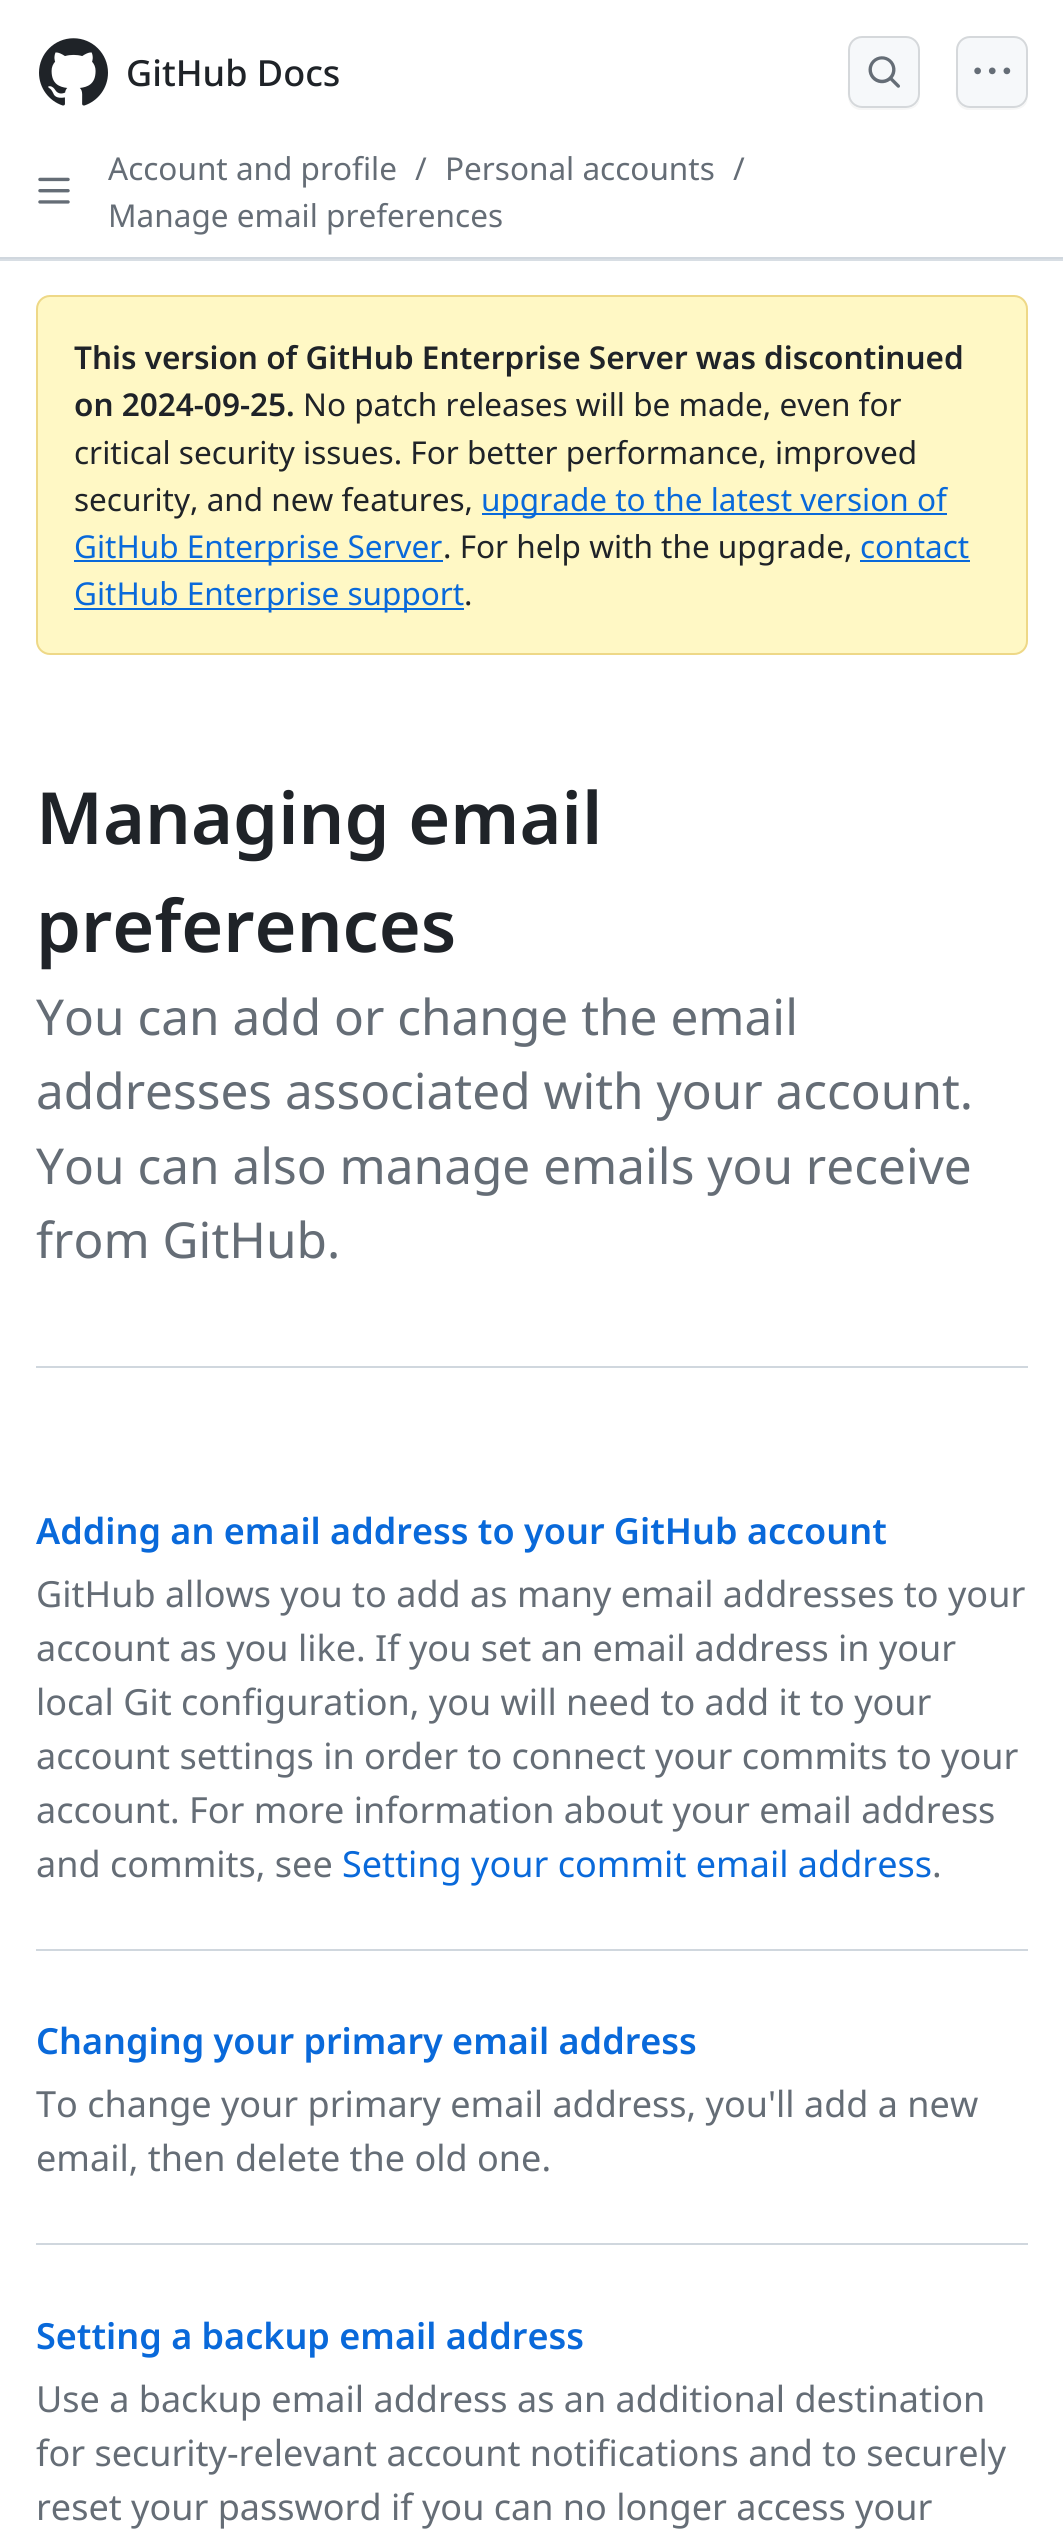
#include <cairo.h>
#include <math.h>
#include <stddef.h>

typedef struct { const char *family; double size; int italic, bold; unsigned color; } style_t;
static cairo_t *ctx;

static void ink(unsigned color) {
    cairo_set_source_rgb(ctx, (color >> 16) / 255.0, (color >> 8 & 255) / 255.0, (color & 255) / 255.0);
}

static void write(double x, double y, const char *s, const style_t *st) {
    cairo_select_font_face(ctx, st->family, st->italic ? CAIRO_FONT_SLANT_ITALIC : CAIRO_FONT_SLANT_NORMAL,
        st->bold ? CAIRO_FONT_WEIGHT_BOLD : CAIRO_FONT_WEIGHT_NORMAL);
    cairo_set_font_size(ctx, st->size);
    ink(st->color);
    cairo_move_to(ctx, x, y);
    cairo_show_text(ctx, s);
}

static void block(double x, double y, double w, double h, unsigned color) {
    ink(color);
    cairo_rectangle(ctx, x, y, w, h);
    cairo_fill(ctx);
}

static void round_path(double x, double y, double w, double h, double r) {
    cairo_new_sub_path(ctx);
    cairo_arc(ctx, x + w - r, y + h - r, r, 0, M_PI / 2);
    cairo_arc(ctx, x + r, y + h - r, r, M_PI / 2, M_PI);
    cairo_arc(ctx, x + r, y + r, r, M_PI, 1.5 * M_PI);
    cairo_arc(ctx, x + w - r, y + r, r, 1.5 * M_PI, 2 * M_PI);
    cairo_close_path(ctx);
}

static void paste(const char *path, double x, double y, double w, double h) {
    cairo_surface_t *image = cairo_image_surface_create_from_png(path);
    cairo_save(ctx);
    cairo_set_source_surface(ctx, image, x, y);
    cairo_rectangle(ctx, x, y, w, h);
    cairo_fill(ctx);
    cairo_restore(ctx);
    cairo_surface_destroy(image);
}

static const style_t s1 = {"Noto Sans Medium", 36, 0, 0, 0x1f2328};
static const style_t s2 = {"Noto Sans", 31.5, 0, 0, 0x656d76};
static const style_t s3 = {"Noto Sans SemiBold", 31.5, 0, 0, 0x1f2328};
static const style_t s4 = {"Noto Sans", 31.5, 0, 0, 0x1f2328};
static const style_t s5 = {"Noto Sans", 31.5, 0, 0, 0x0969da};
static const style_t s6 = {"Noto Sans SemiBold", 72, 0, 0, 0x1f2328};
static const style_t s7 = {"Noto Sans", 49.5, 0, 0, 0x656d76};
static const style_t s8 = {"Noto Sans SemiBold", 36, 0, 0, 0x0969da};
static const style_t s9 = {"Noto Sans", 36, 0, 0, 0x656d76};
static const style_t s10 = {"Noto Sans", 36, 0, 0, 0x0969da};

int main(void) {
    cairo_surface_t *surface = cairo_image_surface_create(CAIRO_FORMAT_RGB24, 1063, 2532);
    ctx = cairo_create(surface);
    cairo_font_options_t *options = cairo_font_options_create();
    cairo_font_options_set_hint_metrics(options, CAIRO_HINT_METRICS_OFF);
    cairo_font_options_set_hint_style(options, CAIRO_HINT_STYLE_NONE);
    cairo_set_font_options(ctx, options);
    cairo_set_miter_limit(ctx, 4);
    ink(0xffffff);
    cairo_paint(ctx);
    block(0, 259, 1063, 2, 0xd8dee4);
    block(0, 257, 1063, 2, 0xd0d7de);
    paste("pic1.png", 39, 38, 69, 68);
    write(126, 86, "GitHub Docs", &s1);
    ink(0xf6f6f6);
    cairo_new_path(ctx);
    cairo_move_to(ctx, 848, 49);
    cairo_line_to(ctx, 848, 81);
    cairo_curve_to(ctx, 848, 92, 845, 107, 859, 110);
    cairo_line_to(ctx, 899, 110);
    cairo_curve_to(ctx, 908, 110, 919, 110, 920, 97);
    cairo_curve_to(ctx, 919, 103, 913, 108, 907, 108);
    cairo_line_to(ctx, 862, 108);
    cairo_curve_to(ctx, 854, 108, 848, 102, 848, 94);
    cairo_close_path(ctx);
    cairo_fill(ctx);
    ink(0xf6f8fa);
    round_path(848, 36, 72, 72, 14);
    cairo_fill(ctx);
    round_path(849, 37, 70, 70, 13);
    cairo_set_source_rgba(ctx, 0.122, 0.137, 0.157, 0.15);
    cairo_stroke(ctx);
    paste("pic2.png", 868, 56, 32, 32);
    ink(0xf6f6f6);
    cairo_new_path(ctx);
    cairo_move_to(ctx, 956, 49);
    cairo_line_to(ctx, 956, 81);
    cairo_curve_to(ctx, 956, 92, 953, 107, 967, 110);
    cairo_line_to(ctx, 1007, 110);
    cairo_curve_to(ctx, 1016, 110, 1027, 110, 1028, 97);
    cairo_curve_to(ctx, 1027, 103, 1021, 108, 1015, 108);
    cairo_line_to(ctx, 970, 108);
    cairo_curve_to(ctx, 962, 108, 956, 102, 956, 94);
    cairo_close_path(ctx);
    cairo_fill(ctx);
    ink(0xf6f8fa);
    round_path(956, 36, 72, 72, 14);
    cairo_fill(ctx);
    round_path(957, 37, 70, 70, 13);
    cairo_set_source_rgba(ctx, 0.122, 0.137, 0.157, 0.15);
    cairo_stroke(ctx);
    paste("pic3.png", 974, 67, 37, 8);
    paste("pic4.png", 38, 177, 32, 27);
    write(108, 180, "Account and profile", &s2);
    write(415, 180, "/", &s2);
    write(445, 180, "Personal accounts", &s2);
    write(733, 180, "/", &s2);
    write(108, 227, "Manage email preferences", &s2);
    ink(0xfff8c5);
    round_path(36, 295, 992, 360, 14);
    cairo_fill(ctx);
    round_path(37, 296, 990, 358, 13);
    cairo_set_source_rgba(ctx, 0.831, 0.655, 0.173, 0.4);
    cairo_stroke(ctx);
    write(74, 369, "This version of GitHub Enterprise Server was discontinued", &s3);
    write(74, 416, "on 2024-09-25.", &s3);
    write(303, 416, "No patch releases will be made, even for", &s4);
    write(74, 464, "critical security issues. For better performance, improved", &s4);
    write(74, 511, "security, and new features,", &s4);
    block(482, 513, 465, 2, 0x0969da);
    write(481, 511, "upgrade to the latest version of", &s5);
    block(74, 560, 369, 2, 0x0969da);
    write(74, 558, "GitHub Enterprise Server", &s5);
    write(443, 558, ". For help with the upgrade,", &s4);
    write(860, 558, "contact", &s5);
    block(860, 560, 110, 2, 0x0969da);
    block(74, 608, 390, 2, 0x0969da);
    write(74, 605, "GitHub Enterprise support", &s5);
    write(464, 605, ".", &s4);
    write(36, 844, "Managing email", &s6);
    write(36, 952, "preferences", &s6);
    write(36, 1035, "You can add or change the email", &s7);
    write(36, 1109, "addresses associated with your account.", &s7);
    write(36, 1184, "You can also manage emails you receive", &s7);
    write(36, 1258, "from GitHub.", &s7);
    block(36, 1366, 992, 2, 0xd0d7de);
    block(36, 1949, 992, 2, 0xd0d7de);
    write(36, 1544, "Adding an email address to your GitHub account", &s8);
    write(36, 1607, "GitHub allows you to add as many email addresses to your", &s9);
    write(36, 1661, "account as you like. If you set an email address in your", &s9);
    write(36, 1715, "local Git configuration, you will need to add it to your", &s9);
    write(36, 1769, "account settings in order to connect your commits to your", &s9);
    write(36, 1823, "account. For more information about your email address", &s9);
    write(36, 1877, "and commits, see", &s9);
    write(342, 1877, "Setting your commit email address", &s10);
    write(932, 1877, ".", &s9);
    block(36, 2243, 992, 2, 0xd0d7de);
    write(36, 2054, "Changing your primary email address", &s8);
    write(36, 2117, "To change your primary email address, you'll add a new", &s9);
    write(36, 2171, "email, then delete the old one.", &s9);
    write(36, 2349, "Setting a backup email address", &s8);
    write(36, 2412, "Use a backup email address as an additional destination", &s9);
    write(36, 2466, "for security-relevant account notifications and to securely", &s9);
    write(36, 2520, "reset your password if you can no longer access your", &s9);
    cairo_surface_write_to_png(surface, "screenshot.png");
    cairo_font_options_destroy(options);
    cairo_destroy(ctx);
    cairo_surface_destroy(surface);
    return 0;
}
